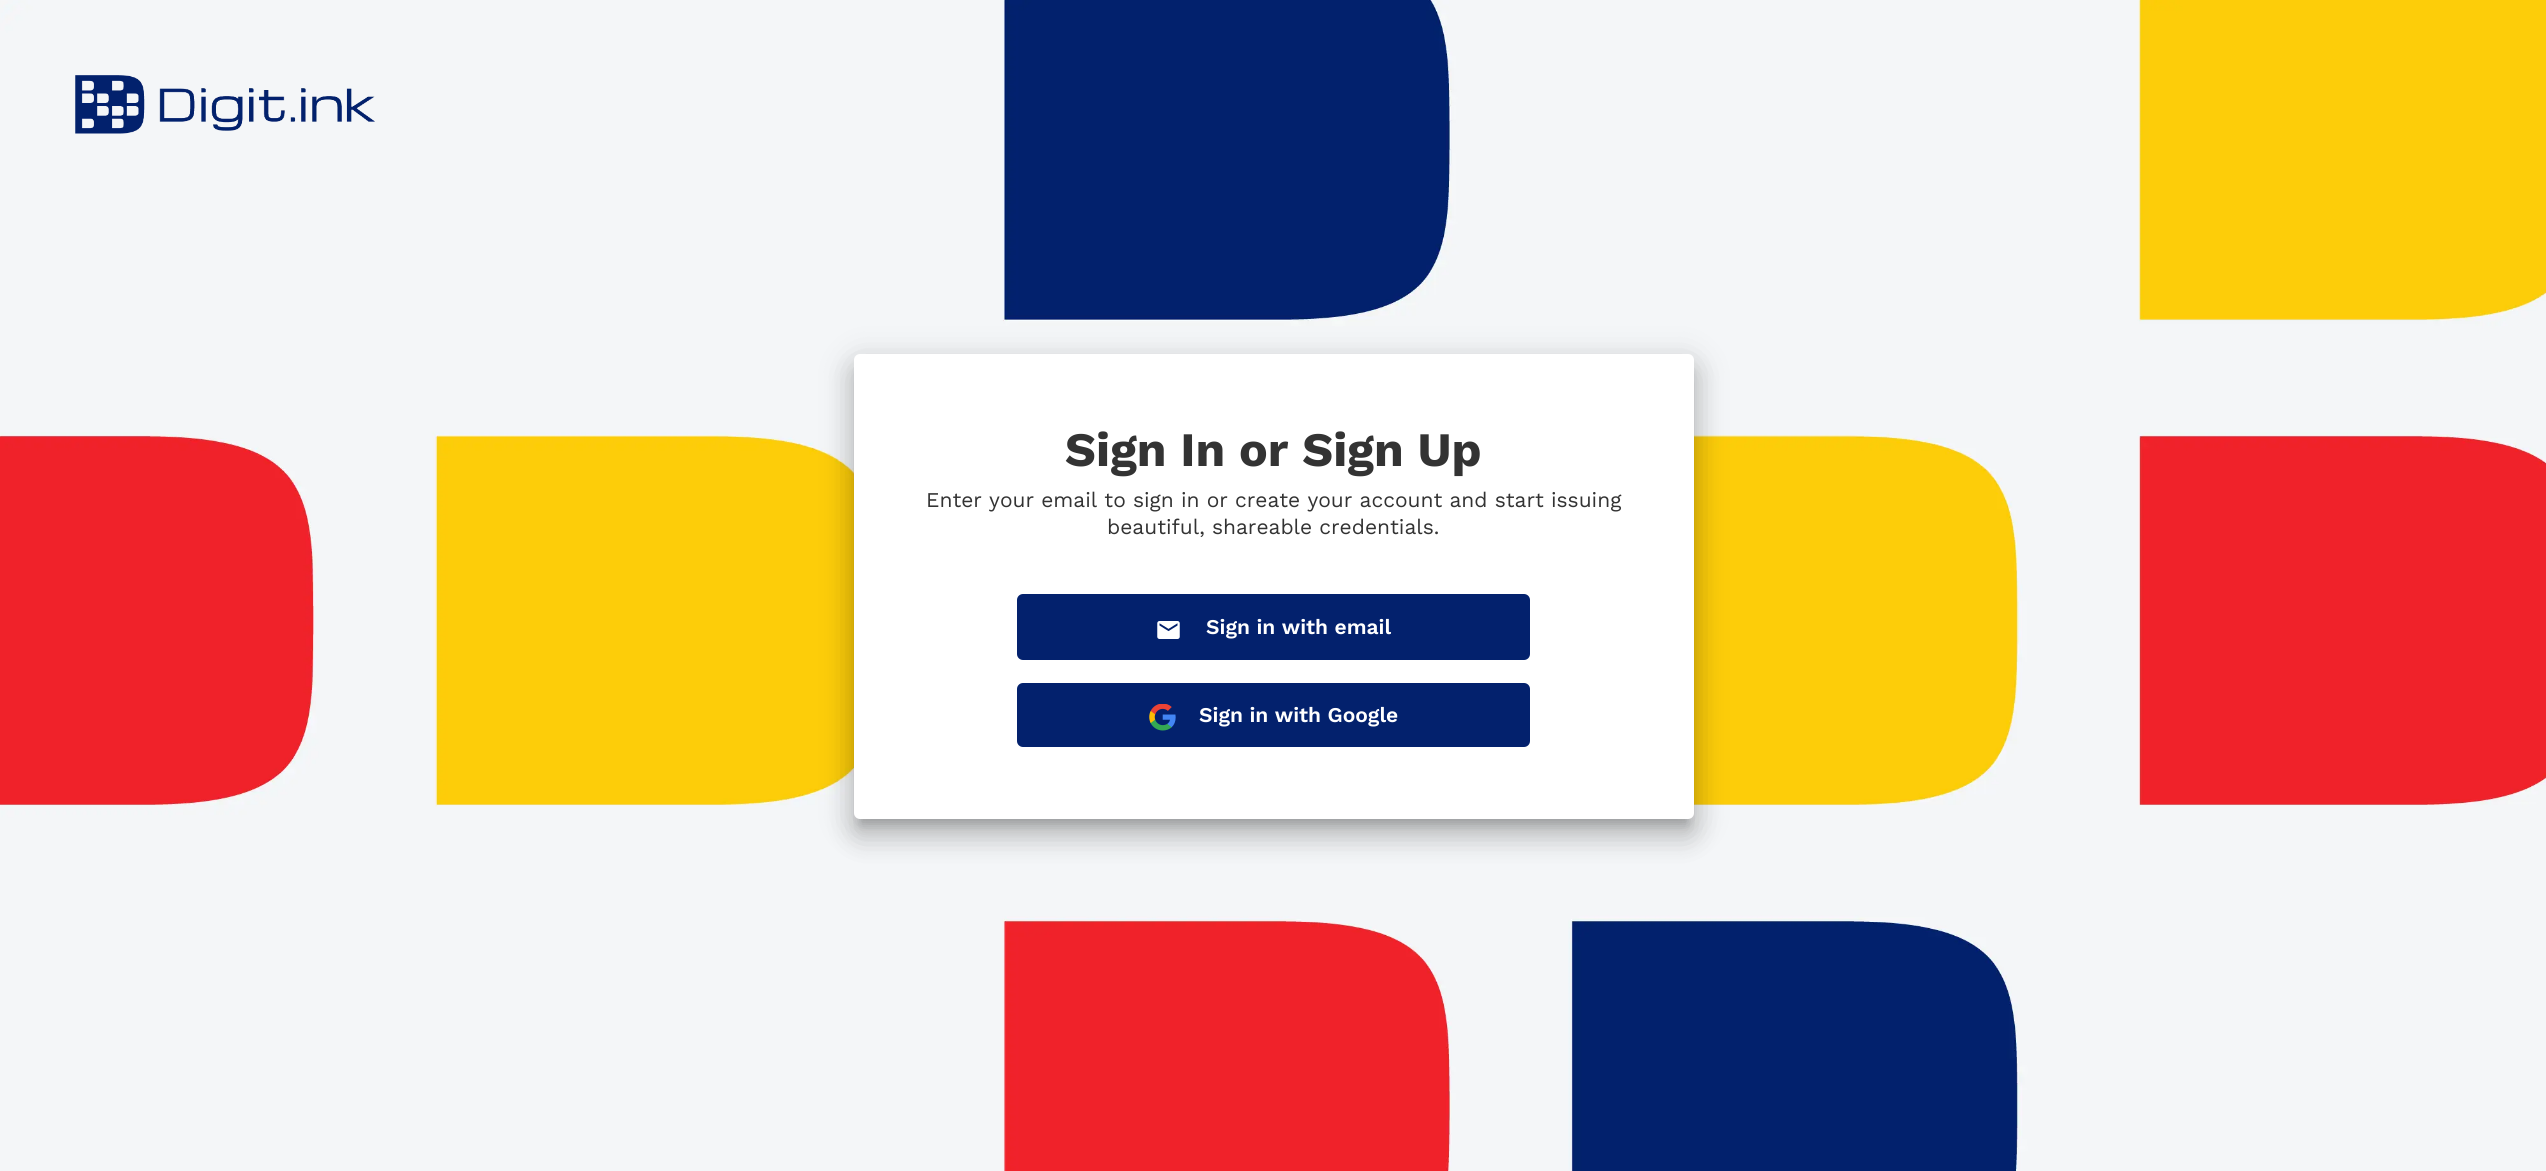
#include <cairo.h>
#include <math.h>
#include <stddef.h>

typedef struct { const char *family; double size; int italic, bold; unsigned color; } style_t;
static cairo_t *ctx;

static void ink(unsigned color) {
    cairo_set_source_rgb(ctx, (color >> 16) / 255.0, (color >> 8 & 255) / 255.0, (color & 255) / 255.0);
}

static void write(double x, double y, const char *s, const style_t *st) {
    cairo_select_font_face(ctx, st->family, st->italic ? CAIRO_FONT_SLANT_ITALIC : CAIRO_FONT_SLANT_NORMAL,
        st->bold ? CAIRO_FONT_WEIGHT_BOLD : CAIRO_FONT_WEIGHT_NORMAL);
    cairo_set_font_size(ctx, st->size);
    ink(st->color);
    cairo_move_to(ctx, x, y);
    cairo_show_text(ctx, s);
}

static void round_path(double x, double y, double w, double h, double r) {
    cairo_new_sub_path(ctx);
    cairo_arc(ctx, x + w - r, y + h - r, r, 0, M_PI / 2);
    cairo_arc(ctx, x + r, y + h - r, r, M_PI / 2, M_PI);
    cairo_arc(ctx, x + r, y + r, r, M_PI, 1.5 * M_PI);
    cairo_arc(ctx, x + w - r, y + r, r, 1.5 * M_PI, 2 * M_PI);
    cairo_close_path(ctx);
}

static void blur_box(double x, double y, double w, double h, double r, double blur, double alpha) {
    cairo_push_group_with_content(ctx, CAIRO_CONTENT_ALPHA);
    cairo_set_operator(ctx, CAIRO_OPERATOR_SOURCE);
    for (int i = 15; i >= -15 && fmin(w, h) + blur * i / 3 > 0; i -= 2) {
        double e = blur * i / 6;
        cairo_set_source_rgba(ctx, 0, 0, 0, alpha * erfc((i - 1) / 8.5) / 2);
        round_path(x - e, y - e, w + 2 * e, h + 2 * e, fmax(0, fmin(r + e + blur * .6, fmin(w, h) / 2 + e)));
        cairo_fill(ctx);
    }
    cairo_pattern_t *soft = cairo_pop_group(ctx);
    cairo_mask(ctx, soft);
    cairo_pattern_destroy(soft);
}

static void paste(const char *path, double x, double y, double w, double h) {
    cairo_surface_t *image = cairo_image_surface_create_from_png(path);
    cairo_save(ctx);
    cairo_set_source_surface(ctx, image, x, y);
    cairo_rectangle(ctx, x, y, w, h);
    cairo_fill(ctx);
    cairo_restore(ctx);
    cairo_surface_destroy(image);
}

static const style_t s1 = {"Work Sans", 48, 0, 1, 0x333333};
static const style_t s2 = {"Work Sans", 21, 0, 0, 0x333333};
static const style_t s3 = {"Work Sans SemiBold", 21, 0, 0, 0xffffff};

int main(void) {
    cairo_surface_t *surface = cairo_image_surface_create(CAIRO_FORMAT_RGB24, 2546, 1171);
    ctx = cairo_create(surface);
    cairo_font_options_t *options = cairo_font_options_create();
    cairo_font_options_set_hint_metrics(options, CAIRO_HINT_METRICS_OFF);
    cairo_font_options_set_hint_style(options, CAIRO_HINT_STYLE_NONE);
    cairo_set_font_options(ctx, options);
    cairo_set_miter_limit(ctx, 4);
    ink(0xf4f6f8);
    cairo_paint(ctx);
    paste("pic2.png", 0, 0, 2546, 1171);
    paste("pic1.png", 75, 75, 300, 59);
    ink(0x000000);
    blur_box(848, 356, 852, 477, 12, 16.5, 0.12);
    blur_box(851, 369, 846, 471, 9, 13, 0.14);
    blur_box(860, 371, 828, 453, 0, 6, 0.2);
    ink(0xffffff);
    round_path(854, 354, 840, 465, 6);
    cairo_fill(ctx);
    write(1065, 466, "Sign In or Sign Up", &s1);
    write(926, 507, "Enter your email to sign in or create your account and start issuing", &s2);
    write(1107, 534, "beautiful, shareable credentials.", &s2);
    ink(0x03216d);
    round_path(1017, 594, 513, 66, 6);
    cairo_fill(ctx);
    paste("pic3.png", 1157, 621, 23, 18);
    write(1206, 634, "Sign in with email", &s3);
    ink(0x03216d);
    round_path(1017, 683, 513, 64, 6);
    cairo_fill(ctx);
    paste("pic4.png", 1149, 704, 27, 27);
    write(1199, 722, "Sign in with Google", &s3);
    cairo_surface_write_to_png(surface, "screenshot.png");
    cairo_font_options_destroy(options);
    cairo_destroy(ctx);
    cairo_surface_destroy(surface);
    return 0;
}
